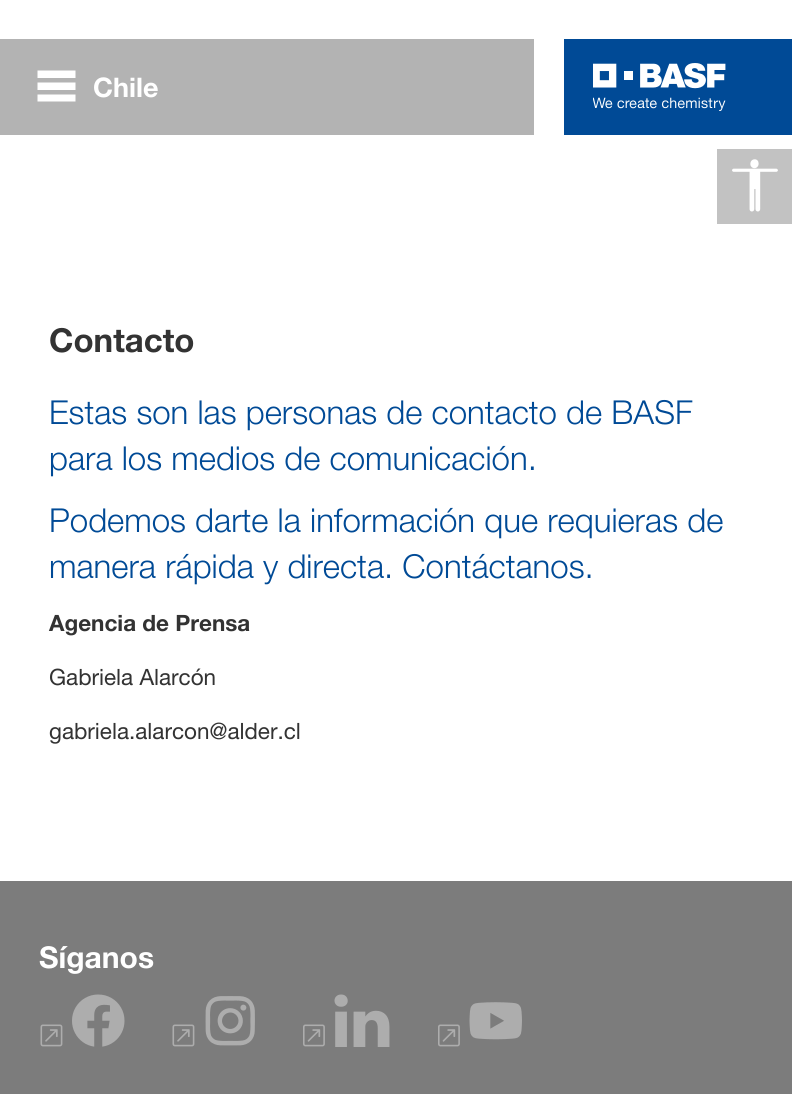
#include <cairo.h>
#include <math.h>
#include <stddef.h>

typedef struct { const char *family; double size; int italic, bold; unsigned color; } style_t;
static cairo_t *ctx;

static void ink(unsigned color) {
    cairo_set_source_rgb(ctx, (color >> 16) / 255.0, (color >> 8 & 255) / 255.0, (color & 255) / 255.0);
}

static void write(double x, double y, const char *s, const style_t *st) {
    cairo_select_font_face(ctx, st->family, st->italic ? CAIRO_FONT_SLANT_ITALIC : CAIRO_FONT_SLANT_NORMAL,
        st->bold ? CAIRO_FONT_WEIGHT_BOLD : CAIRO_FONT_WEIGHT_NORMAL);
    cairo_set_font_size(ctx, st->size);
    ink(st->color);
    cairo_move_to(ctx, x, y);
    cairo_show_text(ctx, s);
}

static void block(double x, double y, double w, double h, unsigned color) {
    ink(color);
    cairo_rectangle(ctx, x, y, w, h);
    cairo_fill(ctx);
}

static void paste(const char *path, double x, double y, double w, double h) {
    cairo_surface_t *image = cairo_image_surface_create_from_png(path);
    cairo_save(ctx);
    cairo_set_source_surface(ctx, image, x, y);
    cairo_rectangle(ctx, x, y, w, h);
    cairo_fill(ctx);
    cairo_restore(ctx);
    cairo_surface_destroy(image);
}

static const style_t s1 = {"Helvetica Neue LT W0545", 27, 0, 1, 0xffffff};
static const style_t s2 = {"Helvetica Neue LT W0545", 33, 0, 1, 0x333333};
static const style_t s3 = {"Helvetica Neue LT W0545 Light", 33, 0, 0, 0x004a96};
static const style_t s4 = {"Helvetica Neue LT W0545", 22.5, 0, 1, 0x333333};
static const style_t s5 = {"Helvetica Neue LT W0545", 22.5, 0, 0, 0x333333};
static const style_t s6 = {"Helvetica Neue LT W0545", 30, 0, 1, 0xffffff};

int main(void) {
    cairo_surface_t *surface = cairo_image_surface_create(CAIRO_FORMAT_RGB24, 792, 1094);
    ctx = cairo_create(surface);
    cairo_font_options_t *options = cairo_font_options_create();
    cairo_font_options_set_hint_metrics(options, CAIRO_HINT_METRICS_OFF);
    cairo_font_options_set_hint_style(options, CAIRO_HINT_STYLE_NONE);
    cairo_set_font_options(ctx, options);
    cairo_set_miter_limit(ctx, 4);
    ink(0xffffff);
    cairo_paint(ctx);
    block(0, 39, 534, 96, 0xb3b3b3);
    ink(0xffffff);
    cairo_new_path(ctx);
    cairo_move_to(ctx, 37.5, 70.5);
    cairo_line_to(ctx, 75.5, 70.5);
    cairo_line_to(ctx, 75.5, 78);
    cairo_line_to(ctx, 37.5, 78);
    cairo_close_path(ctx);
    cairo_move_to(ctx, 37.5, 82.5);
    cairo_line_to(ctx, 75.5, 82.5);
    cairo_line_to(ctx, 75.5, 90);
    cairo_line_to(ctx, 37.5, 90);
    cairo_close_path(ctx);
    cairo_move_to(ctx, 37.5, 94.5);
    cairo_line_to(ctx, 75.5, 94.5);
    cairo_line_to(ctx, 75.5, 101.5);
    cairo_line_to(ctx, 37.5, 101.5);
    cairo_close_path(ctx);
    cairo_fill(ctx);
    write(93, 97, "Chile", &s1);
    block(564, 39, 228, 96, 0x004a96);
    paste("pic1.png", 593, 63, 133, 48);
    write(49, 352, "Contacto", &s2);
    write(49, 424, "Estas son las personas de contacto de BASF", &s3);
    write(49, 470, "para los medios de comunicación.", &s3);
    write(49, 532, "Podemos darte la información que requieras de", &s3);
    write(49, 578, "manera rápida y directa. Contáctanos.", &s3);
    write(49, 631, "Agencia de Prensa", &s4);
    write(49, 685, "Gabriela Alarcón", &s5);
    write(49, 739, "gabriela.alarcon@alder.cl", &s5);
    block(717, 149, 75, 75, 0xc2c2c2);
    paste("pic2.png", 732, 159, 46, 53);
    block(0, 881, 792, 213, 0x7c7c7c);
    write(39, 968, "Síganos", &s6);
    paste("pic3.png", 40, 1024, 23, 23);
    paste("pic4.png", 72, 994, 53, 53);
    paste("pic3.png", 172, 1024, 23, 23);
    paste("pic5.png", 205, 996, 50, 50);
    paste("pic6.png", 303, 1024, 22, 23);
    paste("pic7.png", 334, 994, 56, 53);
    paste("pic6.png", 438, 1024, 22, 23);
    paste("pic8.png", 469, 1002, 53, 38);
    cairo_surface_write_to_png(surface, "screenshot.png");
    cairo_font_options_destroy(options);
    cairo_destroy(ctx);
    cairo_surface_destroy(surface);
    return 0;
}
